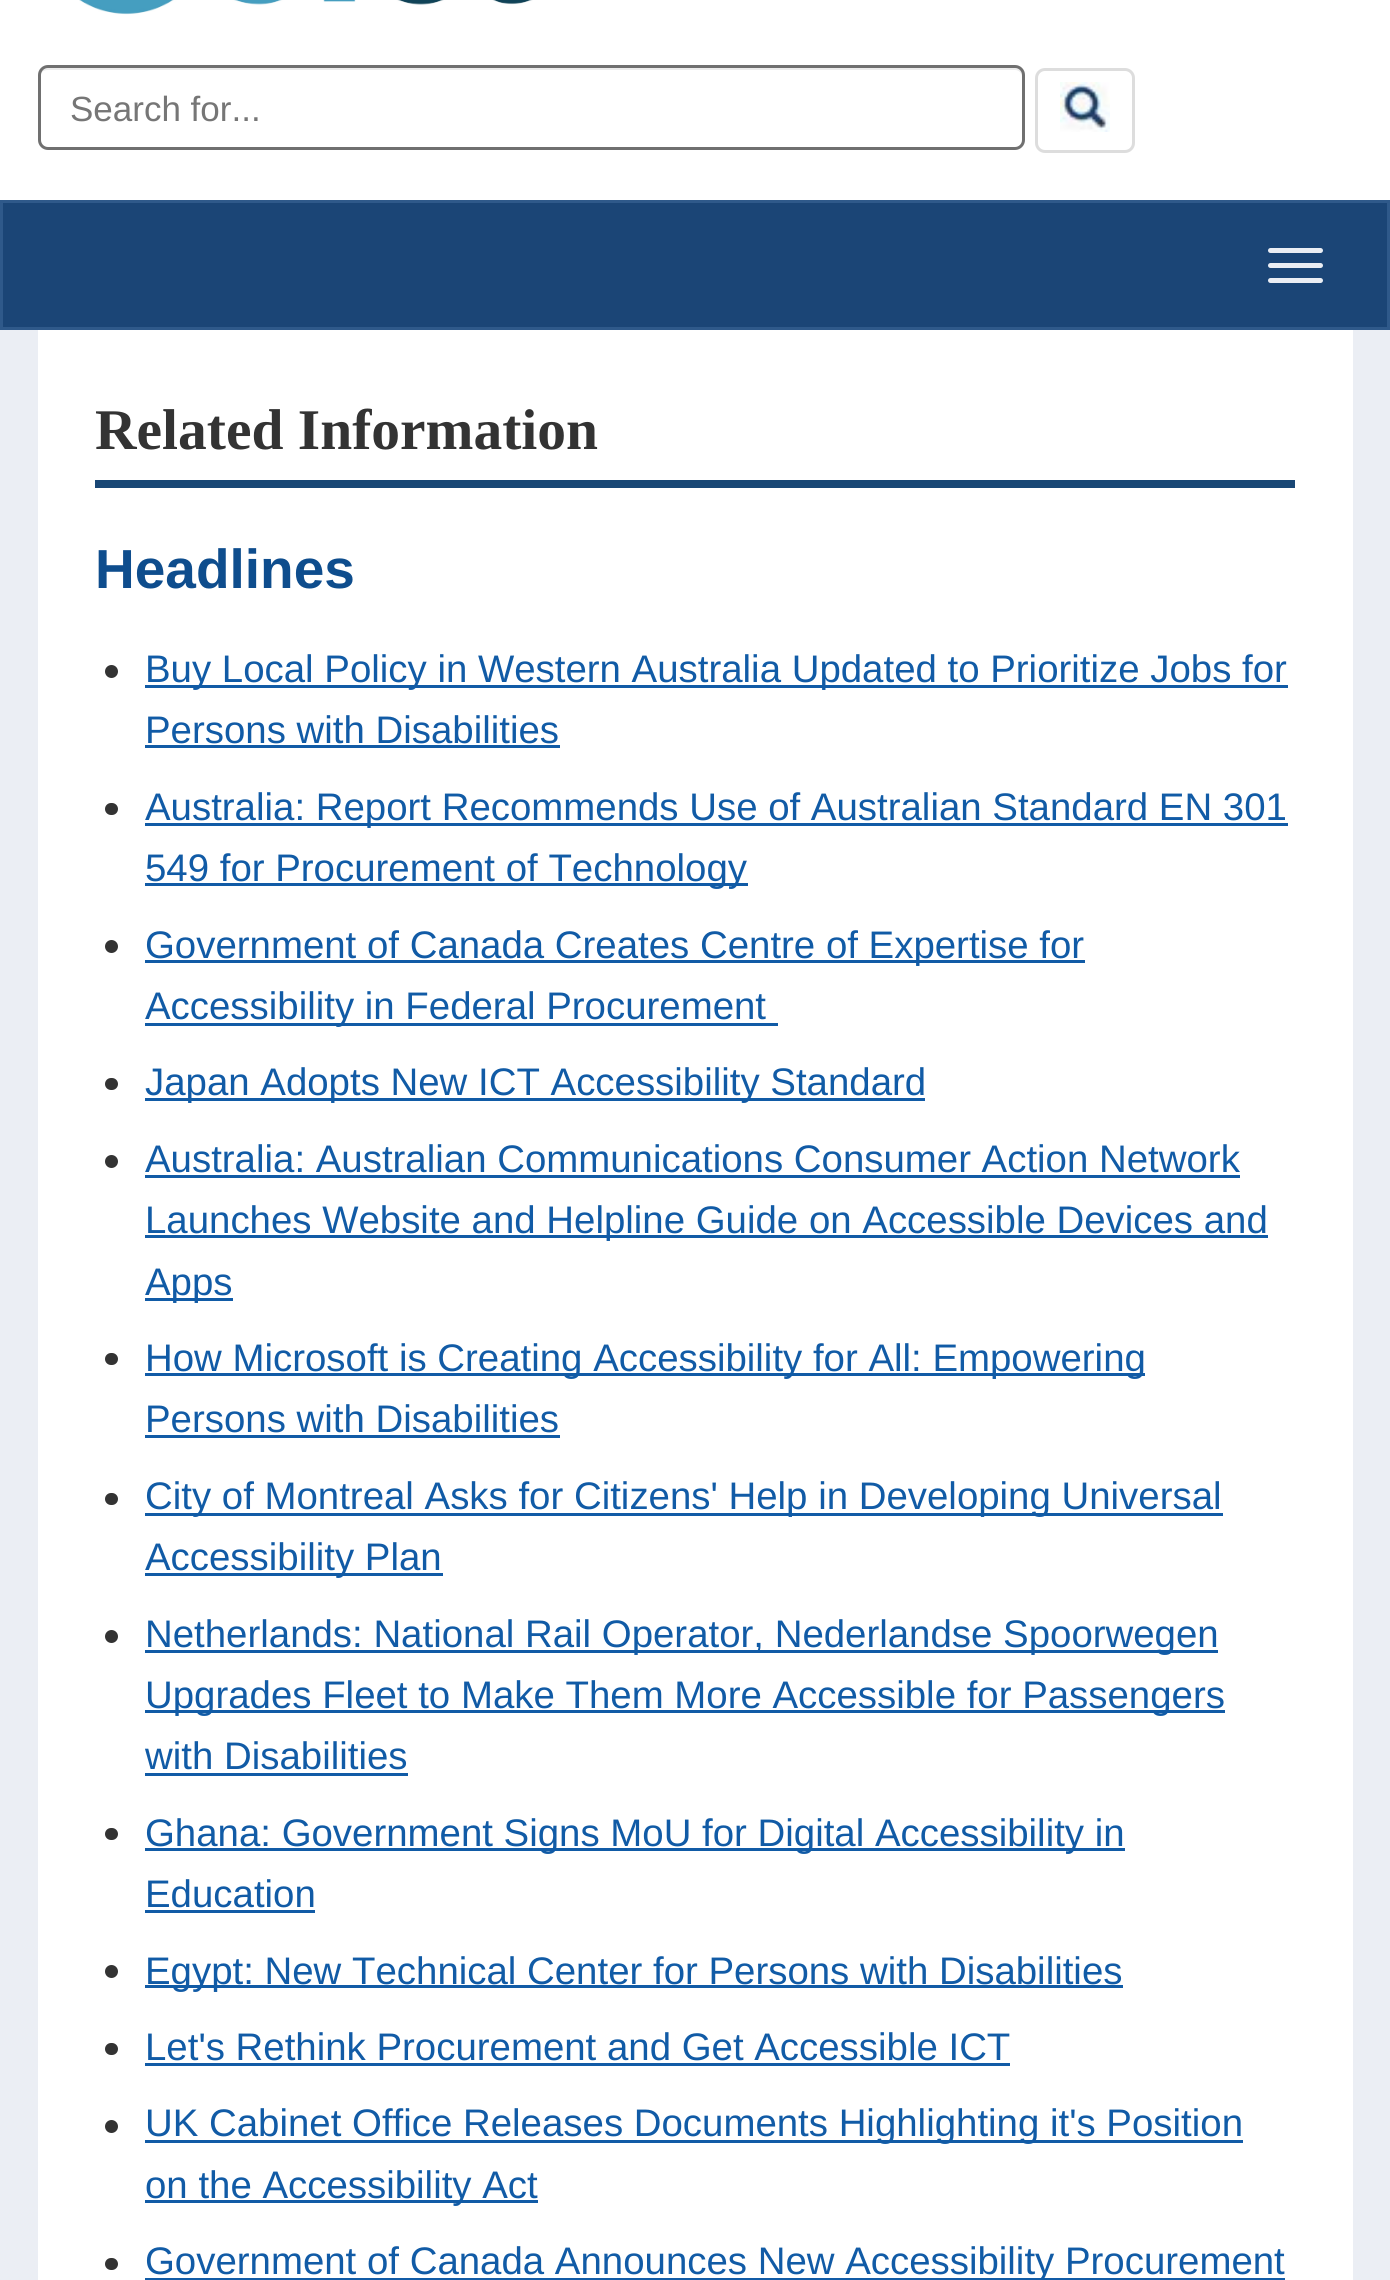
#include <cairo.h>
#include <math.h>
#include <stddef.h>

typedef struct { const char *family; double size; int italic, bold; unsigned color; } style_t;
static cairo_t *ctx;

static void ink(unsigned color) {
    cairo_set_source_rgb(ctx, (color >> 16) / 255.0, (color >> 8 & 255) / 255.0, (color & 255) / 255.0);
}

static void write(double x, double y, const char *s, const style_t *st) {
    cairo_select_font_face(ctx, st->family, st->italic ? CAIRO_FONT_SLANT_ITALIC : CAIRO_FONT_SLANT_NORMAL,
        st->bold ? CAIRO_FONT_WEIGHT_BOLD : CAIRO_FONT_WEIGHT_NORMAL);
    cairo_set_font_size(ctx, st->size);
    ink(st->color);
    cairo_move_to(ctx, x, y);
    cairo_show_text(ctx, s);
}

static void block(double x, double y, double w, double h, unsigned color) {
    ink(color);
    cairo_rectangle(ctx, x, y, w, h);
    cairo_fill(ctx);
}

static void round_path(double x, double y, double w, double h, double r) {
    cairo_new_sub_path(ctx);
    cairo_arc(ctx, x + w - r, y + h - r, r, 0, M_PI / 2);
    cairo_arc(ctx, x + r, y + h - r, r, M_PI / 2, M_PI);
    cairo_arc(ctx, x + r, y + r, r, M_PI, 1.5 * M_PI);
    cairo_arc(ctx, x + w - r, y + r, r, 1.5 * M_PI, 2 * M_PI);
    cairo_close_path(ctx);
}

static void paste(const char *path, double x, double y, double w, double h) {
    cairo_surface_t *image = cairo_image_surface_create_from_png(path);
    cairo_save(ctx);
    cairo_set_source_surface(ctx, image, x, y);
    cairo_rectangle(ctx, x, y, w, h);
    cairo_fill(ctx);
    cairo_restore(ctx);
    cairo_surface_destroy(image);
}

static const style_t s1 = {"Liberation Sans", 35, 0, 0, 0x767676};
static const style_t s2 = {"Liberation Serif", 57.5, 0, 1, 0x333333};
static const style_t s3 = {"Liberation Sans", 55, 0, 1, 0x0e4d8d};
static const style_t s4 = {"Liberation Sans", 38.4, 0, 0, 0x115ba6};

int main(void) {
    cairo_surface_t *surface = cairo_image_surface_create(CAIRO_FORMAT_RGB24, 1390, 2280);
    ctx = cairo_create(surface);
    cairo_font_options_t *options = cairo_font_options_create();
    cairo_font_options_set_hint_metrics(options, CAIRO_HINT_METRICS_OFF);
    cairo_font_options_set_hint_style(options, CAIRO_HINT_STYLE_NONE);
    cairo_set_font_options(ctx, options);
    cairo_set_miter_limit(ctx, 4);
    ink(0xffffff);
    cairo_paint(ctx);
    paste("pic1.png", 79, 0, 454, 15);
    ink(0xececec);
    cairo_new_path(ctx);
    cairo_move_to(ctx, 48, 70);
    cairo_line_to(ctx, 1015, 70);
    cairo_curve_to(ctx, 1019, 70, 1022, 73, 1022, 78);
    cairo_line_to(ctx, 1022, 144);
    cairo_curve_to(ctx, 1023, 143, 1023, 142, 1023, 140);
    cairo_line_to(ctx, 1023, 76);
    cairo_curve_to(ctx, 1023, 72, 1019, 68, 1015, 68);
    cairo_line_to(ctx, 48, 68);
    cairo_curve_to(ctx, 44, 68, 40, 72, 40, 76);
    cairo_line_to(ctx, 40, 78);
    cairo_curve_to(ctx, 40, 73, 43, 70, 48, 70);
    cairo_close_path(ctx);
    cairo_fill(ctx);
    round_path(39.5, 66.5, 984, 82, 8.5);
    ink(0x707070);
    cairo_set_line_width(ctx, 3);
    cairo_stroke(ctx);
    write(70, 121, "Search for...", &s1);
    round_path(1036.5, 69.5, 97, 82, 8.5);
    ink(0xdddddd);
    cairo_stroke(ctx);
    paste("pic2.png", 1060, 82, 50, 50);
    ink(0x1b4576);
    cairo_rectangle(ctx, 1.5, 201.5, 1387, 127);
    cairo_fill_preserve(ctx);
    ink(0x2f598a);
    cairo_stroke(ctx);
    ink(0xebeef4);
    round_path(1268, 248, 55, 5, 2.5);
    cairo_fill(ctx);
    round_path(1268, 263, 55, 5, 2.5);
    cairo_fill(ctx);
    round_path(1268, 278, 55, 5, 2.5);
    cairo_fill(ctx);
    block(0, 330, 1390, 1950, 0xebeef4);
    block(38, 330, 1315, 1950, 0xffffff);
    block(95, 480, 1200, 8, 0x194775);
    write(95, 449, "Related Information", &s2);
    write(95, 588, "Headlines", &s3);
    ink(0x333333);
    cairo_new_path(ctx);
    cairo_arc(ctx, 111.5, 671.5, 6.5, 0, 2 * M_PI);
    cairo_fill(ctx);
    block(145, 685, 1143, 3, 0x115ba6);
    write(145, 682, "Buy Local Policy in Western Australia Updated to Prioritize Jobs for", &s4);
    write(145, 743, "Persons with Disabilities", &s4);
    block(145, 745, 415, 3, 0x115ba6);
    ink(0x333333);
    round_path(105, 803, 13, 12, 6);
    cairo_fill(ctx);
    block(145, 823, 1143, 3, 0x115ba6);
    write(145, 820, "Australia: Report Recommends Use of Australian Standard EN 301", &s4);
    block(145, 883, 603, 3, 0x115ba6);
    write(145, 881, "549 for Procurement of Technology", &s4);
    ink(0x333333);
    cairo_new_path(ctx);
    cairo_arc(ctx, 111.5, 946.5, 6.5, 0, 2 * M_PI);
    cairo_fill(ctx);
    block(145, 960, 940, 3, 0x115ba6);
    write(145, 958, "Government of Canada Creates Centre of Expertise for", &s4);
    block(145, 1023, 633, 3, 0x115ba6);
    write(145, 1019, "Accessibility in Federal Procurement", &s4);
    ink(0x333333);
    round_path(105, 1078, 13, 12, 6);
    cairo_fill(ctx);
    block(145, 1098, 780, 3, 0x115ba6);
    write(145, 1095, "Japan Adopts New ICT Accessibility Standard", &s4);
    ink(0x333333);
    cairo_new_path(ctx);
    cairo_arc(ctx, 111.5, 1161.5, 6.5, 0, 2 * M_PI);
    cairo_fill(ctx);
    write(145, 1172, "Australia: Australian Communications Consumer Action Network", &s4);
    block(145, 1175, 1095, 3, 0x115ba6);
    block(145, 1235, 1123, 3, 0x115ba6);
    write(145, 1233, "Launches Website and Helpline Guide on Accessible Devices and", &s4);
    block(145, 1298, 88, 3, 0x115ba6);
    write(145, 1295, "Apps", &s4);
    ink(0x333333);
    round_path(105, 1353, 13, 12, 6);
    cairo_fill(ctx);
    block(145, 1373, 1000, 3, 0x115ba6);
    write(145, 1371, "How Microsoft is Creating Accessibility for All: Empowering", &s4);
    write(145, 1432, "Persons with Disabilities", &s4);
    block(145, 1435, 415, 3, 0x115ba6);
    ink(0x333333);
    round_path(105, 1493, 13, 12, 6);
    cairo_fill(ctx);
    block(145, 1513, 1078, 3, 0x115ba6);
    write(145, 1509, "City of Montreal Asks for Citizens' Help in Developing Universal", &s4);
    block(145, 1573, 298, 3, 0x115ba6);
    write(145, 1570, "Accessibility Plan", &s4);
    ink(0x333333);
    cairo_new_path(ctx);
    cairo_arc(ctx, 111.5, 1636.5, 6.5, 0, 2 * M_PI);
    cairo_fill(ctx);
    block(145, 1650, 1073, 3, 0x115ba6);
    write(145, 1647, "Netherlands: National Rail Operator, Nederlandse Spoorwegen", &s4);
    block(145, 1710, 1080, 3, 0x115ba6);
    write(145, 1708, "Upgrades Fleet to Make Them More Accessible for Passengers", &s4);
    write(145, 1769, "with Disabilities", &s4);
    block(145, 1773, 263, 3, 0x115ba6);
    ink(0x333333);
    round_path(105, 1828, 13, 12, 6);
    cairo_fill(ctx);
    block(145, 1848, 980, 3, 0x115ba6);
    write(145, 1846, "Ghana: Government Signs MoU for Digital Accessibility in", &s4);
    write(145, 1907, "Education", &s4);
    block(145, 1910, 170, 3, 0x115ba6);
    ink(0x333333);
    cairo_new_path(ctx);
    cairo_arc(ctx, 111.5, 1971.5, 6.5, 0, 2 * M_PI);
    cairo_fill(ctx);
    block(145, 1985, 978, 3, 0x115ba6);
    write(145, 1984, "Egypt: New Technical Center for Persons with Disabilities", &s4);
    ink(0x333333);
    round_path(105, 2043, 13, 12, 6);
    cairo_fill(ctx);
    write(145, 2060, "Let's Rethink Procurement and Get Accessible ICT", &s4);
    block(145, 2063, 865, 3, 0x115ba6);
    ink(0x333333);
    cairo_new_path(ctx);
    cairo_arc(ctx, 111.5, 2126.5, 6.5, 0, 2 * M_PI);
    cairo_fill(ctx);
    block(145, 2140, 1098, 3, 0x115ba6);
    write(145, 2136, "UK Cabinet Office Releases Documents Highlighting it's Position", &s4);
    block(145, 2200, 393, 3, 0x115ba6);
    write(145, 2198, "on the Accessibility Act", &s4);
    ink(0x333333);
    round_path(105, 2258, 13, 12, 6);
    cairo_fill(ctx);
    block(145, 2278, 1140, 2, 0x115ba6);
    write(145, 2274, "Government of Canada Announces New Accessibility Procurement", &s4);
    cairo_surface_write_to_png(surface, "screenshot.png");
    cairo_font_options_destroy(options);
    cairo_destroy(ctx);
    cairo_surface_destroy(surface);
    return 0;
}
